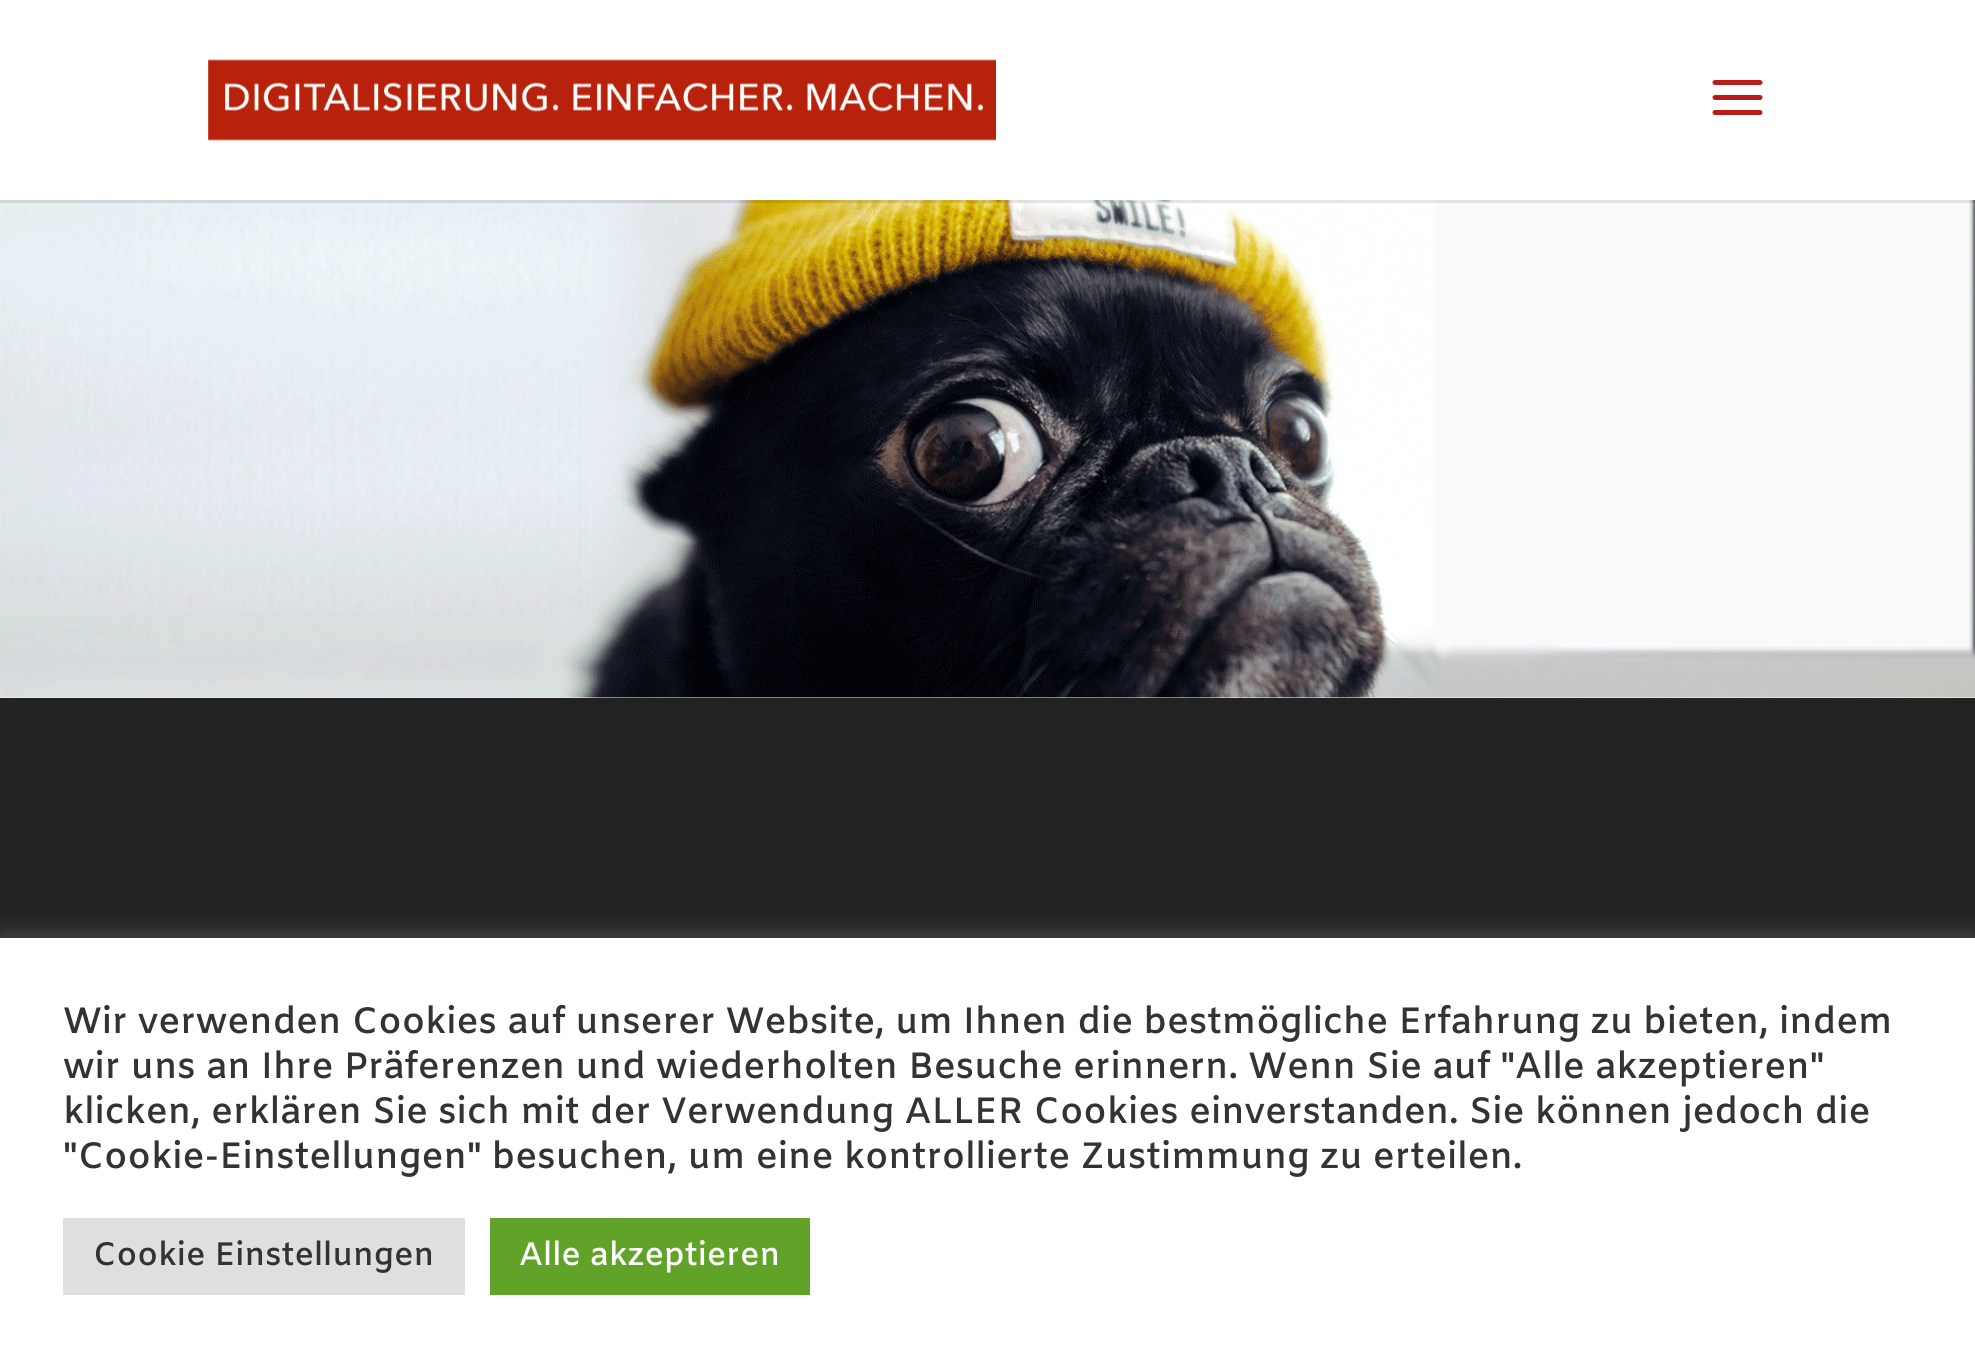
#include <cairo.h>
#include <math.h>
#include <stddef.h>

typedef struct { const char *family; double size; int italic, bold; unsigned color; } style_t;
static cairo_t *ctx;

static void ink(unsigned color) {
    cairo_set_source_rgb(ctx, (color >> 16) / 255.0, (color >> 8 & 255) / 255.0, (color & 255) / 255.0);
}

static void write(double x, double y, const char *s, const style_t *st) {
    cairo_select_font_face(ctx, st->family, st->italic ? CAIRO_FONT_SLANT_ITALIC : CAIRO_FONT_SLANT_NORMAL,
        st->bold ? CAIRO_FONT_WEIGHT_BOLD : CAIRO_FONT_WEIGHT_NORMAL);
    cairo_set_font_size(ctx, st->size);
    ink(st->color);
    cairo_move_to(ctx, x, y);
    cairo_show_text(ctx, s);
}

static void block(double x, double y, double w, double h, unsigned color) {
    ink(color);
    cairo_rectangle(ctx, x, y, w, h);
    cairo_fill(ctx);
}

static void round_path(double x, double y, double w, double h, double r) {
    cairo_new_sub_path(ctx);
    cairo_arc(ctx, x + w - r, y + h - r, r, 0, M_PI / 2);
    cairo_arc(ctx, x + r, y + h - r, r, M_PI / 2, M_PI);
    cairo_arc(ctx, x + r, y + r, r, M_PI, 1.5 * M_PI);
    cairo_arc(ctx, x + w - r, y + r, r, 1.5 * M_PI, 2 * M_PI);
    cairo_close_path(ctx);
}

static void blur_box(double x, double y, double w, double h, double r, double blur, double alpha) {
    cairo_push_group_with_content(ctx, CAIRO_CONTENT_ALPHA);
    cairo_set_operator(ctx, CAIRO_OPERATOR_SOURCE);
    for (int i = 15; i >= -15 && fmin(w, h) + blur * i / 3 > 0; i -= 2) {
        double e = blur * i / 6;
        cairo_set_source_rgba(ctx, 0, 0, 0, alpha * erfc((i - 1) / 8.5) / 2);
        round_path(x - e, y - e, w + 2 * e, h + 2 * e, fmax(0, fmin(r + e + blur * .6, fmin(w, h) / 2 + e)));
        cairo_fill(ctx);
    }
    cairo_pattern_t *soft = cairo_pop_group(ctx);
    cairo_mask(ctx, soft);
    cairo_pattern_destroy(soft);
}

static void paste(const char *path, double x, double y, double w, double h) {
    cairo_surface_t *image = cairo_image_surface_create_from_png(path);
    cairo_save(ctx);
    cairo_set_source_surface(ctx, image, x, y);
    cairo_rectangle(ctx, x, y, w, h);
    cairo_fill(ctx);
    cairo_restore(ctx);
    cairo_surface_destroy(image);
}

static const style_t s1 = {"Amiko SemiBold", 36.65, 0, 0, 0x333333};
static const style_t s2 = {"Amiko SemiBold", 32.5, 0, 0, 0x333333};
static const style_t s3 = {"Amiko SemiBold", 32.5, 0, 0, 0xffffff};

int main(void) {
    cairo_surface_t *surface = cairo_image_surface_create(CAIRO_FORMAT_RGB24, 1975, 1368);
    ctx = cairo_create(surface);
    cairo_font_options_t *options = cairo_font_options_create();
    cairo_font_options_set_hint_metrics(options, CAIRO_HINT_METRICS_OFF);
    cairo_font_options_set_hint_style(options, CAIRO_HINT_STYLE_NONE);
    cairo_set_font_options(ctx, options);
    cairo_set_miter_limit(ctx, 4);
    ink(0xffffff);
    cairo_paint(ctx);
    paste("pic3.png", 0, 200, 1975, 498);
    cairo_set_source_rgba(ctx, 0, 0, 0, 0.1);
    cairo_rectangle(ctx, 0, 200, 1975, 3);
    cairo_fill(ctx);
    paste("pic1.png", 208, 59, 788, 82);
    paste("pic2.png", 1712, 80, 51, 35);
    block(0, 698, 1975, 240, 0x222222);
    ink(0xacabab);
    blur_box(0, 935, 1975, 433, 0, 12.5, 0.3);
    block(0, 938, 1975, 430, 0xffffff);
    write(63, 1033, "Wir verwenden Cookies auf unserer Website, um Ihnen die bestmögliche Erfahrung zu bieten, indem", &s1);
    write(63, 1078, "wir uns an Ihre Präferenzen und wiederholten Besuche erinnern. Wenn Sie auf \"Alle akzeptieren\"", &s1);
    write(63, 1123, "klicken, erklären Sie sich mit der Verwendung ALLER Cookies einverstanden. Sie können jedoch die", &s1);
    write(63, 1168, "\"Cookie-Einstellungen\" besuchen, um eine kontrollierte Zustimmung zu erteilen.", &s1);
    block(63, 1218, 402, 77, 0xdedfe0);
    write(93, 1265, "Cookie Einstellungen", &s2);
    block(490, 1218, 320, 77, 0x61a229);
    write(519, 1265, "Alle akzeptieren", &s3);
    cairo_surface_write_to_png(surface, "screenshot.png");
    cairo_font_options_destroy(options);
    cairo_destroy(ctx);
    cairo_surface_destroy(surface);
    return 0;
}
